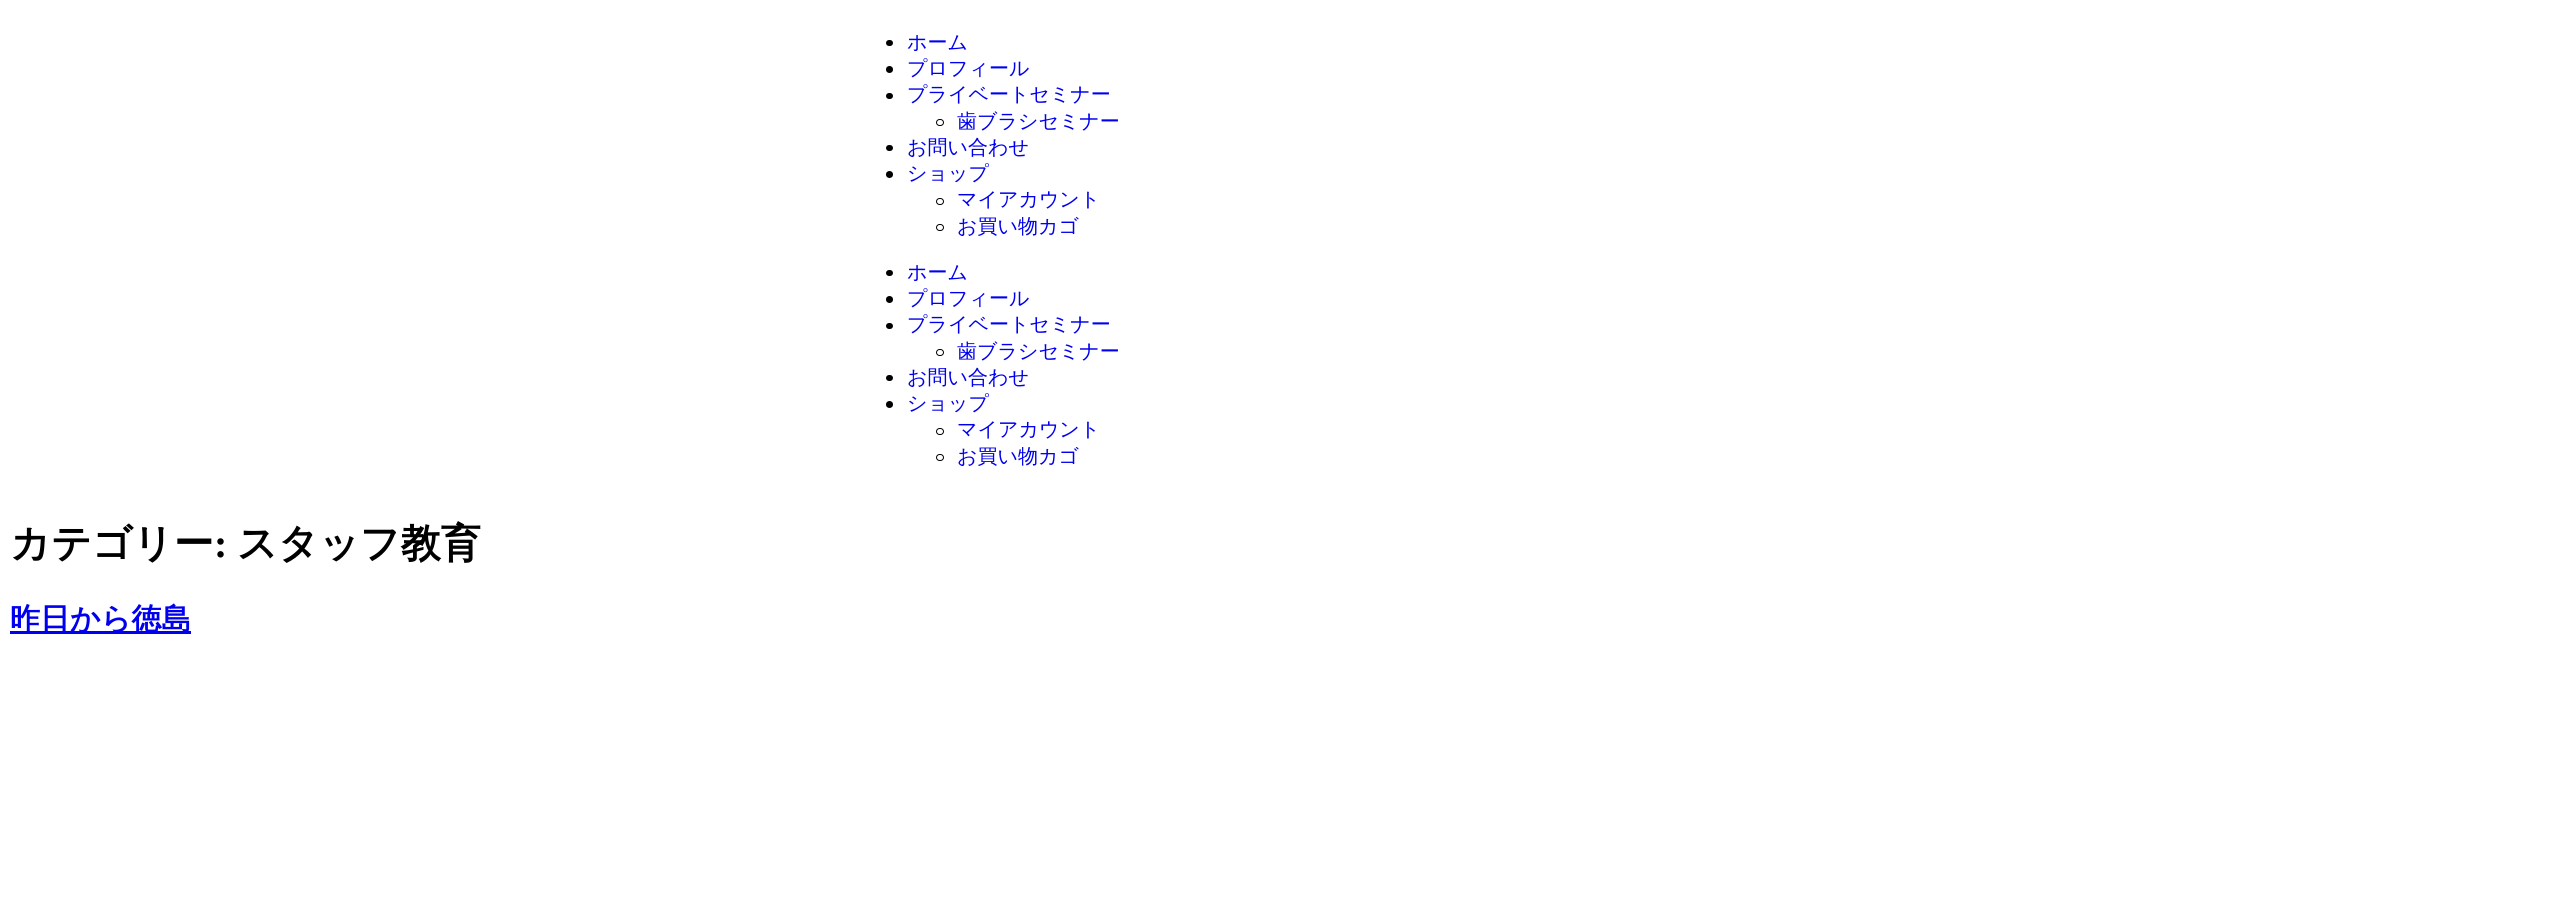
#include <cairo.h>
#include <math.h>
#include <stddef.h>

typedef struct { const char *family; double size; int italic, bold; unsigned color; } style_t;
static cairo_t *ctx;

static void ink(unsigned color) {
    cairo_set_source_rgb(ctx, (color >> 16) / 255.0, (color >> 8 & 255) / 255.0, (color & 255) / 255.0);
}

static void write(double x, double y, const char *s, const style_t *st) {
    cairo_select_font_face(ctx, st->family, st->italic ? CAIRO_FONT_SLANT_ITALIC : CAIRO_FONT_SLANT_NORMAL,
        st->bold ? CAIRO_FONT_WEIGHT_BOLD : CAIRO_FONT_WEIGHT_NORMAL);
    cairo_set_font_size(ctx, st->size);
    ink(st->color);
    cairo_move_to(ctx, x, y);
    cairo_show_text(ctx, s);
}

static void block(double x, double y, double w, double h, unsigned color) {
    ink(color);
    cairo_rectangle(ctx, x, y, w, h);
    cairo_fill(ctx);
}

static void round_path(double x, double y, double w, double h, double r) {
    cairo_new_sub_path(ctx);
    cairo_arc(ctx, x + w - r, y + h - r, r, 0, M_PI / 2);
    cairo_arc(ctx, x + r, y + h - r, r, M_PI / 2, M_PI);
    cairo_arc(ctx, x + r, y + r, r, M_PI, 1.5 * M_PI);
    cairo_arc(ctx, x + w - r, y + r, r, 1.5 * M_PI, 2 * M_PI);
    cairo_close_path(ctx);
}

static const style_t s1 = {"WenQuanYi Zen Hei Medium", 20, 0, 0, 0x0000ee};
static const style_t s2 = {"WenQuanYi Zen Hei", 40, 0, 1, 0x000000};
static const style_t s3 = {"Liberation Serif", 40, 0, 1, 0x000000};
static const style_t s4 = {"WenQuanYi Zen Hei", 30, 0, 1, 0x0000ee};

int main(void) {
    cairo_surface_t *surface = cairo_image_surface_create(CAIRO_FORMAT_RGB24, 2559, 903);
    ctx = cairo_create(surface);
    cairo_font_options_t *options = cairo_font_options_create();
    cairo_font_options_set_hint_metrics(options, CAIRO_HINT_METRICS_OFF);
    cairo_font_options_set_hint_style(options, CAIRO_HINT_STYLE_NONE);
    cairo_set_font_options(ctx, options);
    cairo_set_miter_limit(ctx, 4);
    ink(0xffffff);
    cairo_paint(ctx);
    ink(0x000000);
    round_path(886, 40, 7, 6, 3);
    cairo_fill(ctx);
    write(907, 49, "ホーム", &s1);
    ink(0x000000);
    cairo_new_path(ctx);
    cairo_arc(ctx, 889.5, 69.5, 3.5, 0, 2 * M_PI);
    cairo_fill(ctx);
    write(907, 75, "プロフィール", &s1);
    ink(0x000000);
    round_path(886, 93, 7, 6, 3);
    cairo_fill(ctx);
    write(907, 101, "プライベートセミナー", &s1);
    round_path(936.5, 119.5, 7, 6, 3);
    ink(0x000000);
    cairo_set_line_width(ctx, 1);
    cairo_stroke(ctx);
    write(957, 128, "歯ブラシセミナー", &s1);
    ink(0x000000);
    round_path(886, 145, 7, 6, 3);
    cairo_fill(ctx);
    write(907, 154, "お問い合わせ", &s1);
    ink(0x000000);
    cairo_new_path(ctx);
    cairo_arc(ctx, 889.5, 174.5, 3.5, 0, 2 * M_PI);
    cairo_fill(ctx);
    write(907, 180, "ショップ", &s1);
    round_path(936.5, 198.5, 7, 6, 3);
    ink(0x000000);
    cairo_stroke(ctx);
    write(957, 206, "マイアカウント", &s1);
    round_path(936.5, 224.5, 7, 6, 3);
    ink(0x000000);
    cairo_stroke(ctx);
    write(957, 233, "お買い物カゴ", &s1);
    ink(0x000000);
    round_path(886, 270, 7, 6, 3);
    cairo_fill(ctx);
    write(907, 279, "ホーム", &s1);
    ink(0x000000);
    cairo_new_path(ctx);
    cairo_arc(ctx, 889.5, 299.5, 3.5, 0, 2 * M_PI);
    cairo_fill(ctx);
    write(907, 305, "プロフィール", &s1);
    ink(0x000000);
    round_path(886, 323, 7, 6, 3);
    cairo_fill(ctx);
    write(907, 331, "プライベートセミナー", &s1);
    round_path(936.5, 349.5, 7, 6, 3);
    ink(0x000000);
    cairo_stroke(ctx);
    write(957, 358, "歯ブラシセミナー", &s1);
    ink(0x000000);
    round_path(886, 375, 7, 6, 3);
    cairo_fill(ctx);
    write(907, 384, "お問い合わせ", &s1);
    ink(0x000000);
    cairo_new_path(ctx);
    cairo_arc(ctx, 889.5, 404.5, 3.5, 0, 2 * M_PI);
    cairo_fill(ctx);
    write(907, 410, "ショップ", &s1);
    round_path(936.5, 428.5, 7, 6, 3);
    ink(0x000000);
    cairo_stroke(ctx);
    write(957, 436, "マイアカウント", &s1);
    round_path(936.5, 454.5, 7, 6, 3);
    ink(0x000000);
    cairo_stroke(ctx);
    write(957, 463, "お買い物カゴ", &s1);
    write(10, 557, "カテゴリー", &s2);
    write(214, 557, ":", &s3);
    write(237, 557, "スタッフ教育", &s2);
    block(10, 631, 181, 3, 0x0000ee);
    write(10, 629, "昨日から徳島", &s4);
    cairo_surface_write_to_png(surface, "screenshot.png");
    cairo_font_options_destroy(options);
    cairo_destroy(ctx);
    cairo_surface_destroy(surface);
    return 0;
}
